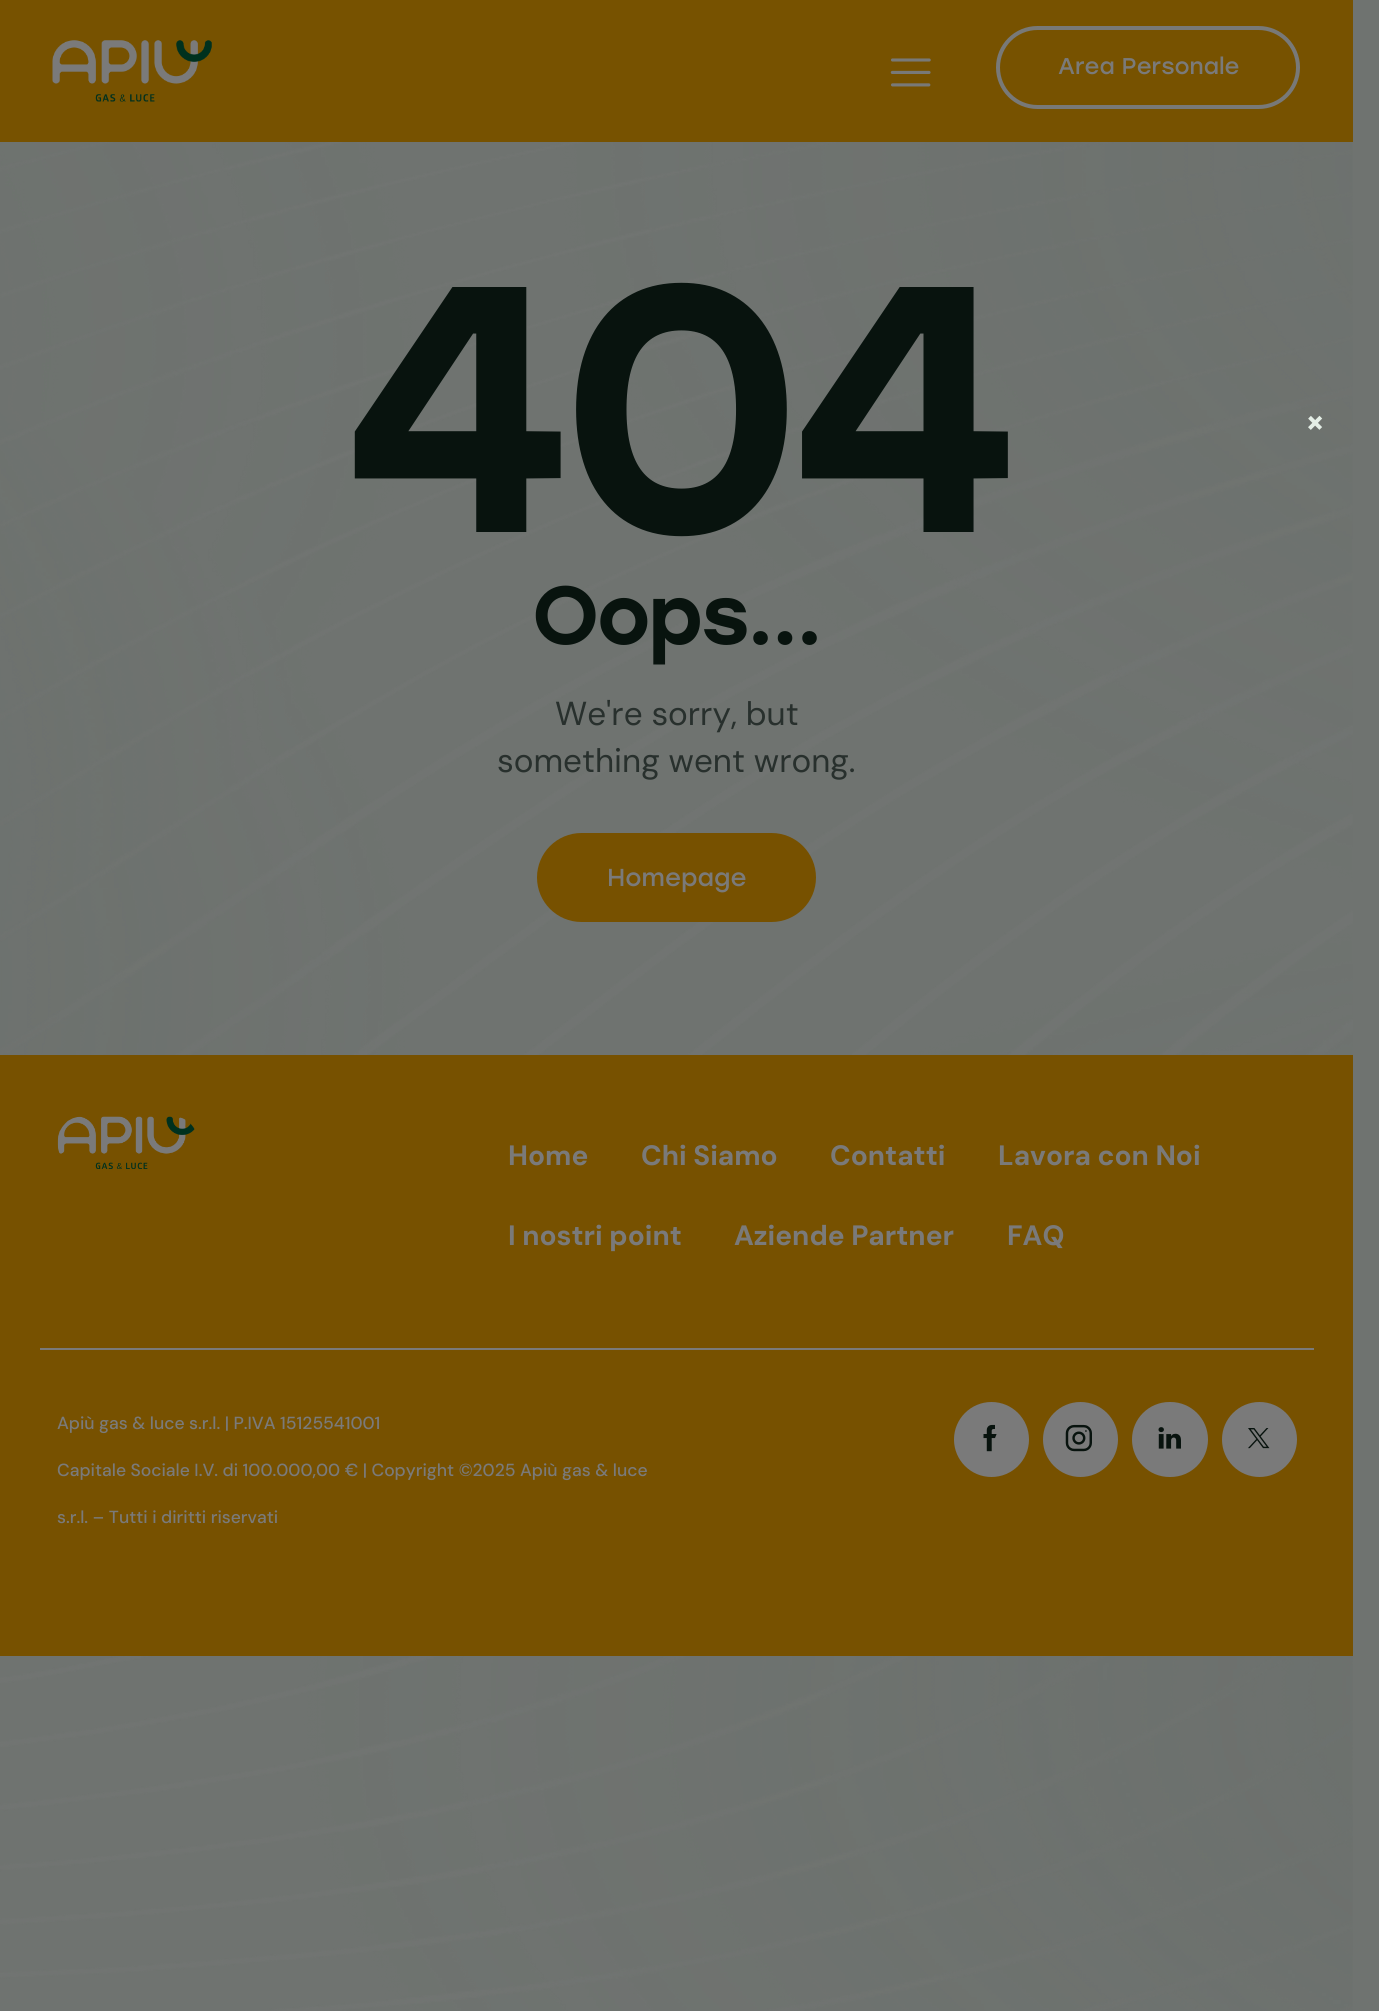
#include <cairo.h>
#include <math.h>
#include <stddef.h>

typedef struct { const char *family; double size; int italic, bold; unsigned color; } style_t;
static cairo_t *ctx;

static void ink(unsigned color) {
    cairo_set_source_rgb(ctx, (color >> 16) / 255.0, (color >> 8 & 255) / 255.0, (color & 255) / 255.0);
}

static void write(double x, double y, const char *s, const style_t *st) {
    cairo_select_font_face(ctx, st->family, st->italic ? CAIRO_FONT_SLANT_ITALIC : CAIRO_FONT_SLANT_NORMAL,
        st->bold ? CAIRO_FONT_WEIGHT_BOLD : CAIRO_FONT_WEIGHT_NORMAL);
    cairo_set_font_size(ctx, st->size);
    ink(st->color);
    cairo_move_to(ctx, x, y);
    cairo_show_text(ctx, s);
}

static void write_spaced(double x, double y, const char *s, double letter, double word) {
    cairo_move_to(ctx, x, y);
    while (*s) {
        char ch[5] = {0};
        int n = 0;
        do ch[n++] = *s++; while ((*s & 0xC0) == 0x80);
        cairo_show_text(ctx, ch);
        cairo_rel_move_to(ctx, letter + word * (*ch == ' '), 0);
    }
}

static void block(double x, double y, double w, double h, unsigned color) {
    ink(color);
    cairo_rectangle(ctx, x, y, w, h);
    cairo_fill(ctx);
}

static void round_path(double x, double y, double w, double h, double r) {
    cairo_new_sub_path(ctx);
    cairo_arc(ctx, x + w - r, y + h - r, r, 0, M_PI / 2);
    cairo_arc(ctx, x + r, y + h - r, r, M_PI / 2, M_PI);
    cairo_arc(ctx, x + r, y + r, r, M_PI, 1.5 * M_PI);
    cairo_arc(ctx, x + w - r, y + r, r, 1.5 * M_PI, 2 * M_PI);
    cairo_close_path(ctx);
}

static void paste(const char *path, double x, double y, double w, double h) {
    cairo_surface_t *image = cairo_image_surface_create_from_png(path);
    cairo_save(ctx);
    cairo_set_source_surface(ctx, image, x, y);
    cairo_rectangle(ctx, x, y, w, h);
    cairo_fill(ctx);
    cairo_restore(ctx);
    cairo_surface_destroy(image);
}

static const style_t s1 = {"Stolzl", 22.75, 0, 0, 0x7a7a7a};
static const style_t s2 = {"DM Sans", 33.25, 0, 0, 0x28302d};
static const style_t s3 = {"Stolzl", 24.5, 0, 0, 0x7a7a7a};
static const style_t s4 = {"DM Sans", 28, 0, 1, 0x7a7a7a};
static const style_t s5 = {"DM Sans Medium", 17.5, 0, 0, 0x7a7a7a};
static const style_t s6 = {"DM Sans", 35, 0, 1, 0xe4eee6};

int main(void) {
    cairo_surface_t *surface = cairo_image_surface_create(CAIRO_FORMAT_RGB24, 1379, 2011);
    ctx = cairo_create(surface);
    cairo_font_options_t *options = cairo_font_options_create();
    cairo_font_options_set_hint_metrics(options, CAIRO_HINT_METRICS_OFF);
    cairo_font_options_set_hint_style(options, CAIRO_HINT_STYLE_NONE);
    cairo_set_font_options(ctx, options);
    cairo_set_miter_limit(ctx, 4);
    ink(0x6f7370);
    cairo_paint(ctx);
    paste("pic1.png", 0, 142, 1353, 1869);
    block(0, 0, 1353, 142, 0x775200);
    paste("pic2.png", 52, 40, 160, 62);
    paste("pic3.png", 890, 58, 41, 29);
    round_path(998, 28, 300, 79, 39.5);
    ink(0x787978);
    cairo_set_line_width(ctx, 4);
    cairo_stroke(ctx);
    write(1058, 74, "Area Personale", &s1);
    cairo_select_font_face(ctx, "Stolzl Medium", CAIRO_FONT_SLANT_NORMAL, CAIRO_FONT_WEIGHT_NORMAL);
    cairo_set_font_size(ctx, 350);
    ink(0x08130e);
    write_spaced(345, 532, "404", -10.5, 0);
    cairo_set_font_size(ctx, 82);
    write_spaced(532, 644, "Oops...", -2.5, 0);
    write(555, 725, "We're sorry, but", &s2);
    write(497, 772, "something went wrong.", &s2);
    ink(0x775100);
    round_path(537, 833, 279, 89, 44.5);
    cairo_fill(ctx);
    write(607, 886, "Homepage", &s3);
    block(0, 1055, 1353, 601, 0x775100);
    paste("pic4.png", 57, 1116, 138, 53);
    write(508, 1165, "Home", &s4);
    write(641, 1165, "Chi Siamo", &s4);
    write(830, 1165, "Contatti", &s4);
    write(998, 1165, "Lavora con Noi", &s4);
    write(508, 1245, "I nostri point", &s4);
    write(734, 1245, "Aziende Partner", &s4);
    write(1007, 1245, "FAQ", &s4);
    block(40, 1348, 1274, 2, 0x7a7a7a);
    write(57, 1429, "Apiù gas & luce s.r.l. | P.IVA 15125541001", &s5);
    write(57, 1476, "Capitale Sociale I.V. di 100.000,00 € | Copyright ©2025 Apiù gas & luce", &s5);
    write(57, 1523, "s.r.l. – Tutti i diritti riservati", &s5);
    cairo_new_path(ctx);
    cairo_arc(ctx, 991.5, 1439.5, 37.5, 0, 2 * M_PI);
    cairo_fill(ctx);
    paste("pic5.png", 983, 1424, 14, 28);
    cairo_arc(ctx, 1080.5, 1439.5, 37.5, 0, 2 * M_PI);
    cairo_fill(ctx);
    paste("pic6.png", 1065, 1424, 27, 28);
    round_path(1132, 1402, 76, 75, 37.5);
    cairo_fill(ctx);
    paste("pic7.png", 1158, 1427, 23, 22);
    cairo_arc(ctx, 1259.5, 1439.5, 37.5, 0, 2 * M_PI);
    cairo_fill(ctx);
    paste("pic8.png", 1248, 1428, 22, 21);
    write(1305, 433, "×", &s6);
    cairo_surface_write_to_png(surface, "screenshot.png");
    cairo_font_options_destroy(options);
    cairo_destroy(ctx);
    cairo_surface_destroy(surface);
    return 0;
}
